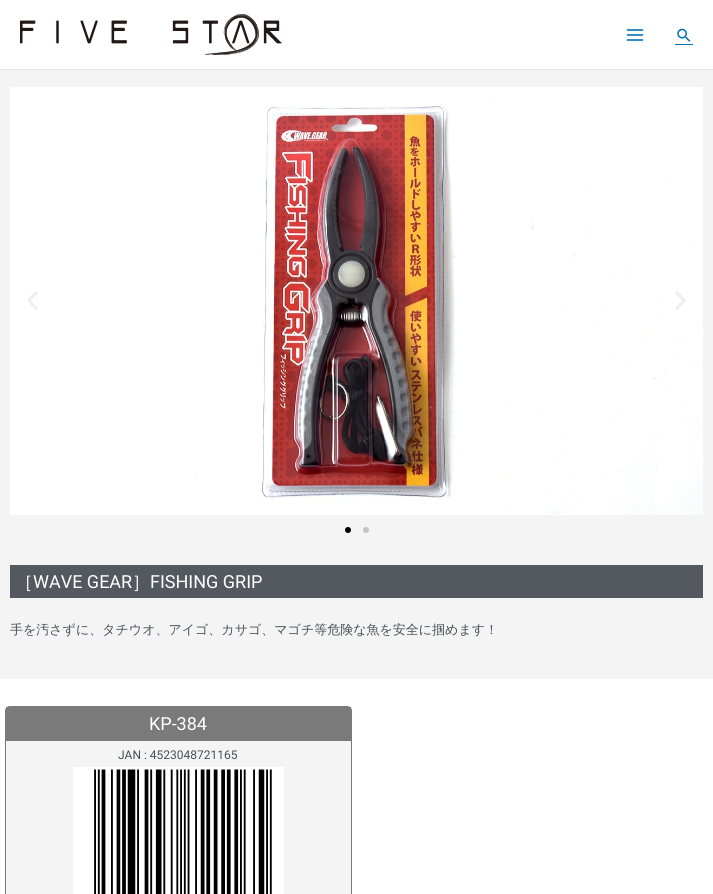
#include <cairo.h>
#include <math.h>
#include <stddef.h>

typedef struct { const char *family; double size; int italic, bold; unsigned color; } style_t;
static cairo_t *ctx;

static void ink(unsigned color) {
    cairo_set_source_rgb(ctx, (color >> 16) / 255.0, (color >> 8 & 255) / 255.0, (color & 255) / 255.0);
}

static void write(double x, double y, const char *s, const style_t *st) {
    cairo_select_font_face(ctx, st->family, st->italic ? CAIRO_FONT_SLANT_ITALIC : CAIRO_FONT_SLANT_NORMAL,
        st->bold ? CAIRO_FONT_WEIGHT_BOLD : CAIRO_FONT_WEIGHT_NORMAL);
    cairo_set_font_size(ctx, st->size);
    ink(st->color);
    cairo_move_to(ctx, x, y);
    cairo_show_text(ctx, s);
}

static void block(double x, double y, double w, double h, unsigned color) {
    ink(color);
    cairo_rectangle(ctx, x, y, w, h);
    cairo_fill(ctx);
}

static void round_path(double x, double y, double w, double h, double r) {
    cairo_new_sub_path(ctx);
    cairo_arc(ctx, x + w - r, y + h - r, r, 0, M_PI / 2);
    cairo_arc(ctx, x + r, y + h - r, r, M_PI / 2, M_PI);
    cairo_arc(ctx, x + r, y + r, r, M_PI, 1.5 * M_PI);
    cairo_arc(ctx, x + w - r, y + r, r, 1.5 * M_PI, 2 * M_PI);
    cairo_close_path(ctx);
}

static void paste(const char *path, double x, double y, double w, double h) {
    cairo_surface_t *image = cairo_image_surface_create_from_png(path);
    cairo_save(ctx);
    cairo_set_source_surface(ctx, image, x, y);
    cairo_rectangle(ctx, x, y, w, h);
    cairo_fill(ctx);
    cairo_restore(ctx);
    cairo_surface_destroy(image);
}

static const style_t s1 = {"WenQuanYi Zen Hei Medium", 18, 0, 0, 0xffffff};
static const style_t s2 = {"Roboto", 18, 0, 0, 0xffffff};
static const style_t s3 = {"WenQuanYi Zen Hei Medium", 13, 0, 0, 0x4b4f58};
static const style_t s4 = {"Roboto", 12, 0, 0, 0x4b4f58};

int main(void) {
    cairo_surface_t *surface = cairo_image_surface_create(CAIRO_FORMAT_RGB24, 713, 894);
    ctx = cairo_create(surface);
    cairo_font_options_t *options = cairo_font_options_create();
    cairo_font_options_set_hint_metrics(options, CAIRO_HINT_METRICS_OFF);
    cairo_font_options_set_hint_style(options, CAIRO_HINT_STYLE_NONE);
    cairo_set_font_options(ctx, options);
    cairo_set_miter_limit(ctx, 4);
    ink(0xffffff);
    cairo_paint(ctx);
    block(0, 69, 713, 1, 0xe5e5e5);
    paste("pic1.png", 20, 14, 262, 41);
    paste("pic2.png", 626, 29, 18, 12);
    block(675, 44, 18, 1, 0x0170b9);
    paste("pic3.png", 677, 28, 14, 14);
    block(0, 70, 713, 609, 0xf4f4f4);
    paste("pic4.png", 10, 87, 693, 428);
    paste("pic5.png", 27, 291, 11, 19);
    paste("pic6.png", 675, 291, 11, 19);
    ink(0x000000);
    cairo_arc(ctx, 348, 530, 3, 0, 2 * M_PI);
    cairo_fill(ctx);
    ink(0xc3c3c3);
    cairo_arc(ctx, 366, 530, 3, 0, 2 * M_PI);
    cairo_fill(ctx);
    block(10, 565, 693, 33, 0x54595f);
    write(15, 588, "［", &s1);
    write(33, 588, "WAVE GEAR", &s2);
    write(132, 588, "］", &s1);
    write(150, 588, "FISHING GRIP", &s2);
    write(10, 634, "手を汚さずに、タチウオ、アイゴ、カサゴ、マゴチ等危険な魚を安全に掴めます！", &s3);
    ink(0xf4f4f4);
    round_path(5.5, 706.5, 346, 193, 4.5);
    cairo_fill_preserve(ctx);
    ink(0x7a7a7a);
    cairo_set_line_width(ctx, 1);
    cairo_stroke(ctx);
    block(6, 707, 345, 34, 0x7a7a7a);
    write(149, 730, "KP-384", &s2);
    write(118, 759, "JAN : 4523048721165", &s4);
    paste("pic7.png", 73, 767, 211, 127);
    cairo_surface_write_to_png(surface, "screenshot.png");
    cairo_font_options_destroy(options);
    cairo_destroy(ctx);
    cairo_surface_destroy(surface);
    return 0;
}
